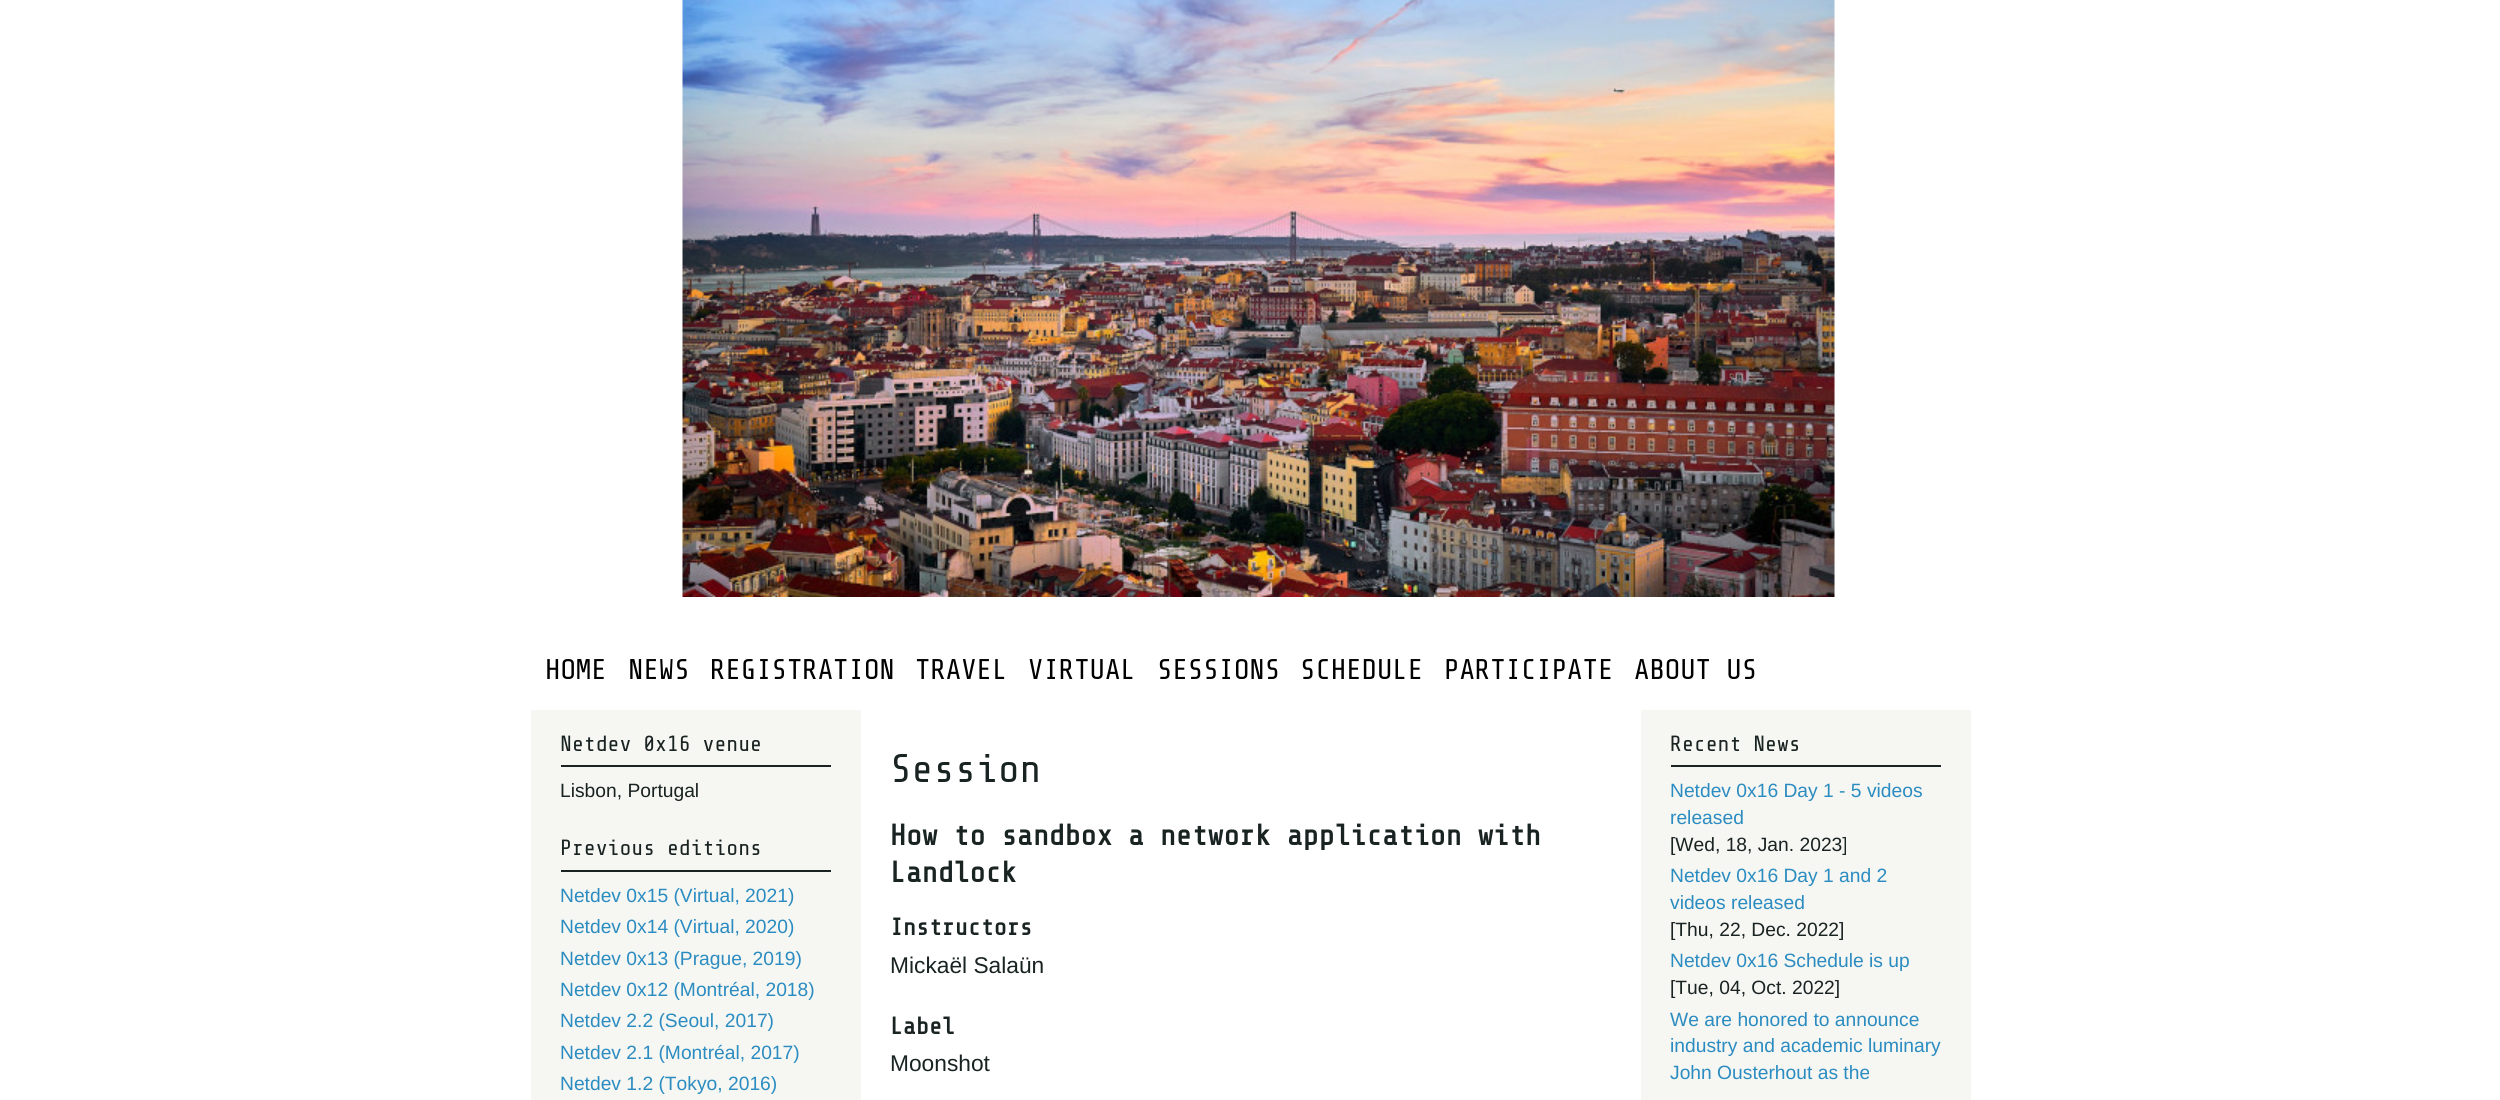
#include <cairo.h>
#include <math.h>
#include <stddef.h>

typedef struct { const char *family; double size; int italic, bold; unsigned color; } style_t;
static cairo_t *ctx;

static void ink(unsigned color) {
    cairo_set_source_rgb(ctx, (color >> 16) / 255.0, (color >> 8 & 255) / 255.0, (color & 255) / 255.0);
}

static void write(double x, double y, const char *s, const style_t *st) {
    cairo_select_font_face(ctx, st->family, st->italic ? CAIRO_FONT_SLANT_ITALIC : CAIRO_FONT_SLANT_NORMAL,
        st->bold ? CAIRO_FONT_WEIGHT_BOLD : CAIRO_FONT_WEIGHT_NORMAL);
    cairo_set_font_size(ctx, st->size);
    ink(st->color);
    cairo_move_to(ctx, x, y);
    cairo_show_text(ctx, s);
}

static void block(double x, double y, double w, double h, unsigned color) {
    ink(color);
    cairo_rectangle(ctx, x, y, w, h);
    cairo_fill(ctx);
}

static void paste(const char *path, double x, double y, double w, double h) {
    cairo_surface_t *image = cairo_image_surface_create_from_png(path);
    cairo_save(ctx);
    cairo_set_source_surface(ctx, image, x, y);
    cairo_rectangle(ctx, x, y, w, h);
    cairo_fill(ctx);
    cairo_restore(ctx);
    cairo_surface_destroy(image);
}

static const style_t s1 = {"Share Tech Mono", 28.5, 0, 0, 0x000000};
static const style_t s2 = {"Share Tech Mono", 22, 0, 0, 0x192322};
static const style_t s3 = {"Liberation Sans", 19.25, 0, 0, 0x192322};
static const style_t s4 = {"Liberation Sans", 19.25, 0, 0, 0x2b8cc1};
static const style_t s5 = {"Share Tech Mono", 40, 0, 0, 0x192322};
static const style_t s6 = {"Share Tech Mono", 29.4, 0, 1, 0x192322};
static const style_t s7 = {"Share Tech Mono", 24, 0, 1, 0x192322};
static const style_t s8 = {"Liberation Sans", 22.75, 0, 0, 0x192322};

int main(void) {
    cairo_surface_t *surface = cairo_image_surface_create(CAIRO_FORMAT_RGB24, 2500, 1100);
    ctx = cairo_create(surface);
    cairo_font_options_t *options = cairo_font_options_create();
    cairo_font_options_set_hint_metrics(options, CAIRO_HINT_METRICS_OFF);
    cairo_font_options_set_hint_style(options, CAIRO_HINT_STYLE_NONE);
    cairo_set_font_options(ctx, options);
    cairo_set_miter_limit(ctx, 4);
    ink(0xffffff);
    cairo_paint(ctx);
    paste("pic1.png", 682, 0, 1153, 597);
    write(545, 679, "HOME", &s1);
    write(628, 679, "NEWS", &s1);
    write(710, 679, "REGISTRATION", &s1);
    write(915, 679, "TRAVEL", &s1);
    write(1028, 679, "VIRTUAL", &s1);
    write(1157, 679, "SESSIONS", &s1);
    write(1300, 679, "SCHEDULE", &s1);
    write(1444, 679, "PARTICIPATE", &s1);
    write(1634, 679, "ABOUT US", &s1);
    block(531, 710, 330, 390, 0xf6f6f2);
    block(561, 765, 270, 2, 0x192322);
    write(560, 751, "Netdev 0x16 venue", &s2);
    write(560, 797, "Lisbon, Portugal", &s3);
    block(561, 870, 270, 2, 0x192322);
    write(560, 855, "Previous editions", &s2);
    write(560, 902, "Netdev 0x15 (Virtual, 2021)", &s4);
    write(560, 933, "Netdev 0x14 (Virtual, 2020)", &s4);
    write(560, 965, "Netdev 0x13 (Prague, 2019)", &s4);
    write(560, 996, "Netdev 0x12 (Montréal, 2018)", &s4);
    write(560, 1027, "Netdev 2.2 (Seoul, 2017)", &s4);
    write(560, 1059, "Netdev 2.1 (Montréal, 2017)", &s4);
    write(560, 1090, "Netdev 1.2 (Tokyo, 2016)", &s4);
    write(890, 782, "Session", &s5);
    write(890, 845, "How to sandbox a network application with", &s6);
    write(890, 882, "Landlock", &s6);
    write(890, 935, "Instructors", &s7);
    write(890, 973, "Mickaël Salaün", &s8);
    write(890, 1034, "Label", &s7);
    write(890, 1071, "Moonshot", &s8);
    block(1641, 710, 330, 390, 0xf6f6f2);
    block(1671, 765, 270, 2, 0x192322);
    write(1670, 751, "Recent News", &s2);
    write(1670, 797, "Netdev 0x16 Day 1 - 5 videos", &s4);
    write(1670, 824, "released", &s4);
    write(1670, 851, "[Wed, 18, Jan. 2023]", &s3);
    write(1670, 882, "Netdev 0x16 Day 1 and 2", &s4);
    write(1670, 909, "videos released", &s4);
    write(1670, 936, "[Thu, 22, Dec. 2022]", &s3);
    write(1670, 967, "Netdev 0x16 Schedule is up", &s4);
    write(1670, 994, "[Tue, 04, Oct. 2022]", &s3);
    write(1670, 1026, "We are honored to announce", &s4);
    write(1670, 1052, "industry and academic luminary", &s4);
    write(1670, 1079, "John Ousterhout as the", &s4);
    cairo_surface_write_to_png(surface, "screenshot.png");
    cairo_font_options_destroy(options);
    cairo_destroy(ctx);
    cairo_surface_destroy(surface);
    return 0;
}
